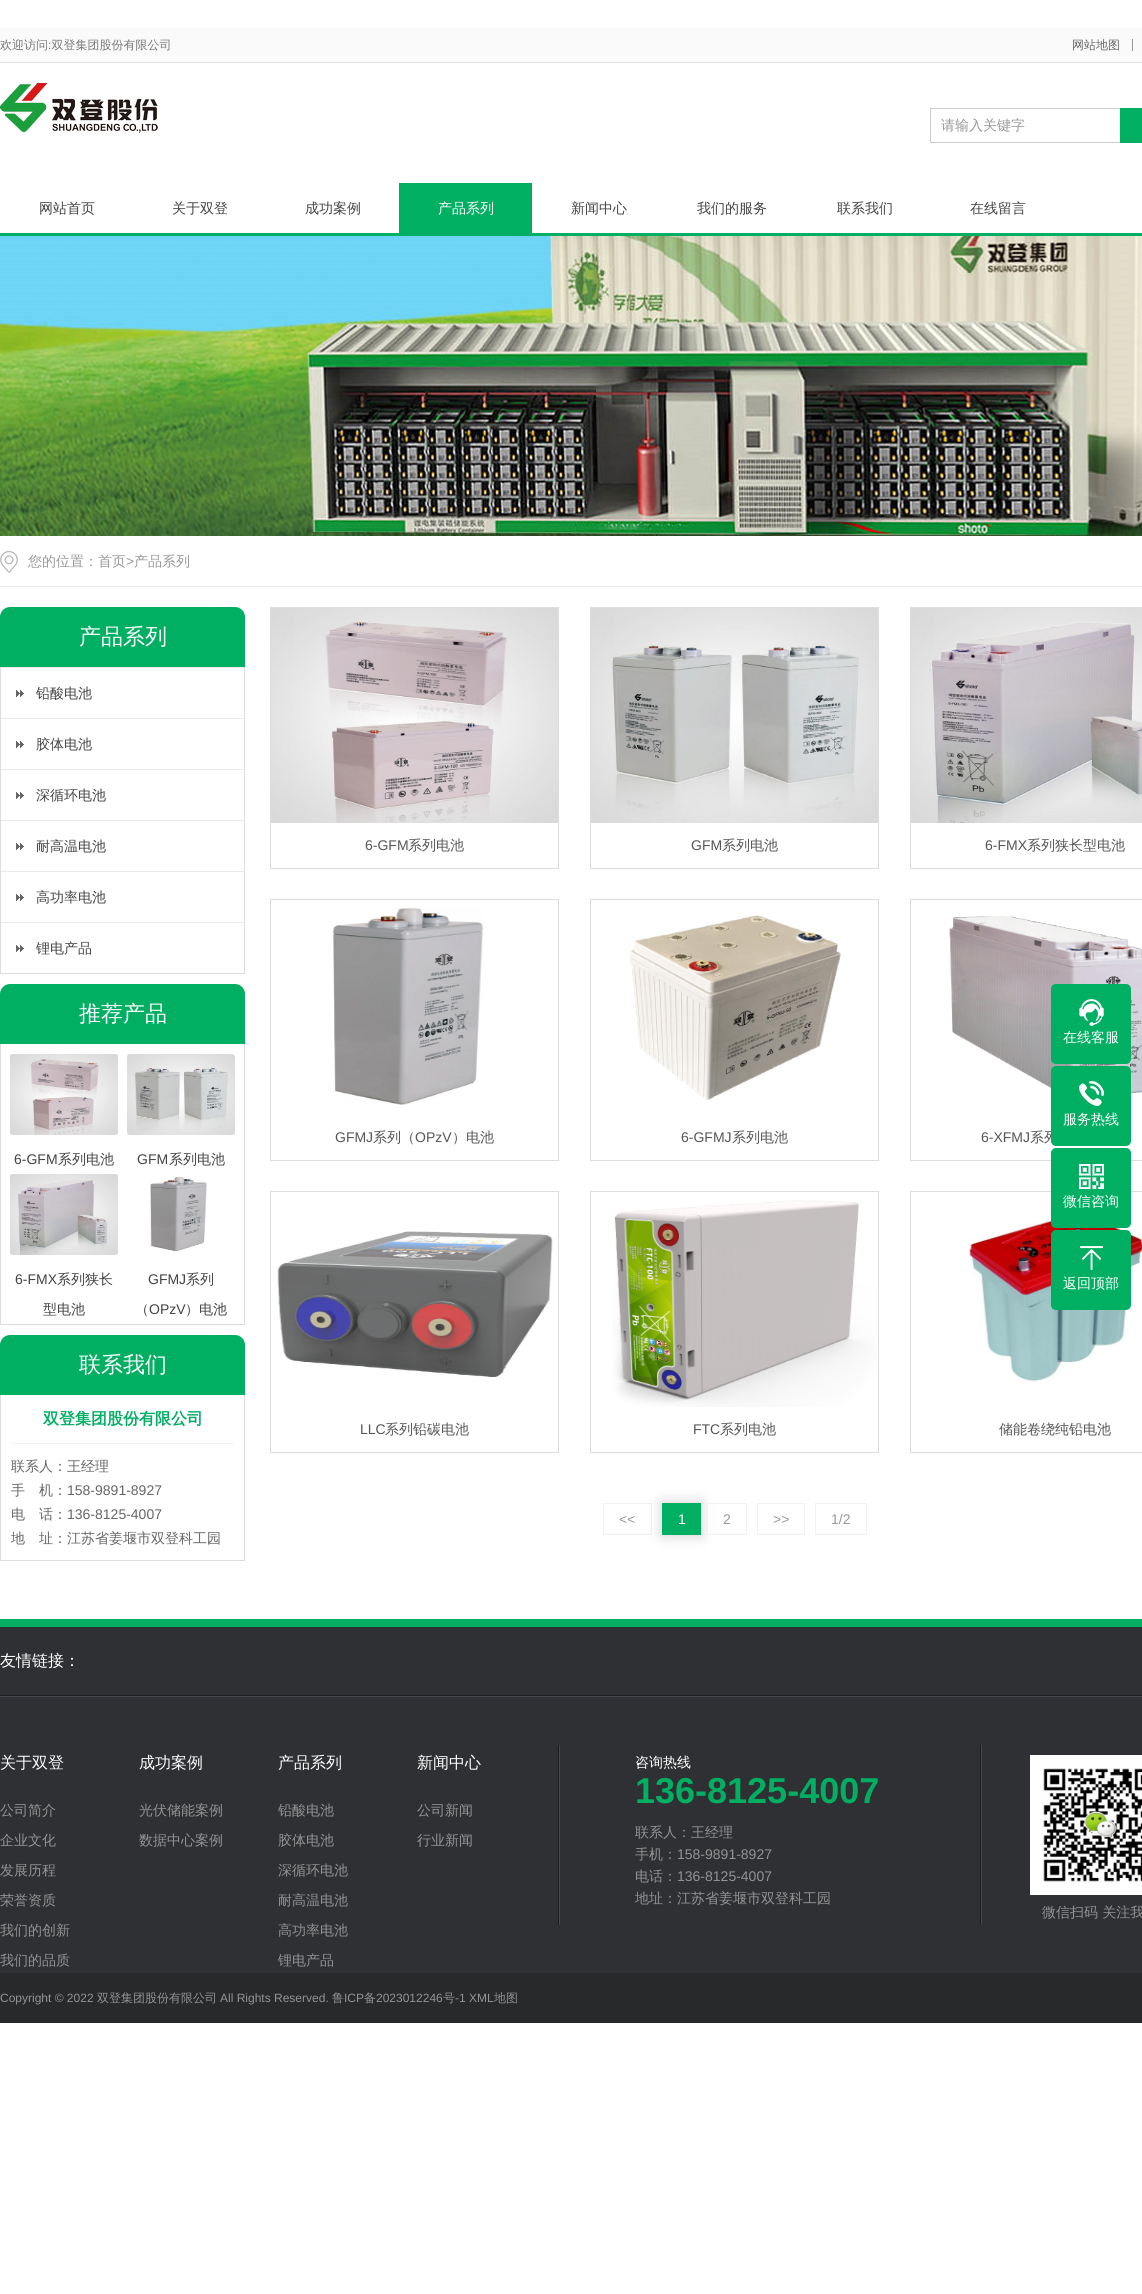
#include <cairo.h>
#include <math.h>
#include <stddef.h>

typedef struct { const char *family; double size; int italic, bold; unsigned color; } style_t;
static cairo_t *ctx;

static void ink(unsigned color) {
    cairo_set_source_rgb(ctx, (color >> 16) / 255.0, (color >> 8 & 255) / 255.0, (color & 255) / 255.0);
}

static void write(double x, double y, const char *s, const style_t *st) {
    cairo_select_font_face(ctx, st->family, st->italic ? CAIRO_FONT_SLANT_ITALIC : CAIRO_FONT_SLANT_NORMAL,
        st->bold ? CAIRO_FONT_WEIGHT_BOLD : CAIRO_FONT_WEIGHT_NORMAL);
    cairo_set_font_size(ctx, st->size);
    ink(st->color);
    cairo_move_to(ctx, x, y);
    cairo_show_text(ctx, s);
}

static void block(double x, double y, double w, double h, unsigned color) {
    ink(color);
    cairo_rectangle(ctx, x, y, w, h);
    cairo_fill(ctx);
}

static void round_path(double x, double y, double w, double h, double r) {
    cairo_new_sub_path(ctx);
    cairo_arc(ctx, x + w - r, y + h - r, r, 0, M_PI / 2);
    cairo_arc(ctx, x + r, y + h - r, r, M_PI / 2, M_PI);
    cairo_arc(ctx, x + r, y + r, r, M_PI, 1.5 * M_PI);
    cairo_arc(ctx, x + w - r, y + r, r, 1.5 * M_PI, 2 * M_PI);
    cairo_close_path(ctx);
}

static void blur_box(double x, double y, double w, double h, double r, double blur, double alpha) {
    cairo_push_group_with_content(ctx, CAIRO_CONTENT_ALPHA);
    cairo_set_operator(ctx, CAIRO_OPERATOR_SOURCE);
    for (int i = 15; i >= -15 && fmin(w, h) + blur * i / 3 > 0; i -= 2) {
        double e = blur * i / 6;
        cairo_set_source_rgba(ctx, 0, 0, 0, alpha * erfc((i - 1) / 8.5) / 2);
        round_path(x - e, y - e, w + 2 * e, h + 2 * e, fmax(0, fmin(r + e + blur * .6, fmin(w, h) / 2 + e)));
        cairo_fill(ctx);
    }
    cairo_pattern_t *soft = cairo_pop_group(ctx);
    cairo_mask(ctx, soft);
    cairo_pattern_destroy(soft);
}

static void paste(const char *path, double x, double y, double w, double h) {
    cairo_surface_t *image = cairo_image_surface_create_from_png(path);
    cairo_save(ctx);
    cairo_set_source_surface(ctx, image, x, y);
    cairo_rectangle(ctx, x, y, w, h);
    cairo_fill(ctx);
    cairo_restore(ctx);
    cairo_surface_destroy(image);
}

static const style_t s1 = {"WenQuanYi Zen Hei Medium", 12, 0, 0, 0x777777};
static const style_t s2 = {"Liberation Sans", 12, 0, 0, 0x777777};
static const style_t s3 = {"WenQuanYi Zen Hei Medium", 12, 0, 0, 0x666666};
static const style_t s4 = {"WenQuanYi Zen Hei Medium", 14, 0, 0, 0x999999};
static const style_t s5 = {"WenQuanYi Zen Hei Medium", 14, 0, 0, 0x434343};
static const style_t s6 = {"WenQuanYi Zen Hei Medium", 14, 0, 0, 0xffffff};
static const style_t s7 = {"Liberation Sans", 14, 0, 0, 0x999999};
static const style_t s8 = {"WenQuanYi Zen Hei Medium", 22, 0, 0, 0xffffff};
static const style_t s9 = {"Liberation Sans", 14, 0, 0, 0x434343};
static const style_t s10 = {"WenQuanYi Zen Hei", 16, 0, 1, 0x01af63};
static const style_t s11 = {"WenQuanYi Zen Hei Medium", 14, 0, 0, 0x666666};
static const style_t s12 = {"Liberation Sans", 14, 0, 0, 0x666666};
static const style_t s13 = {"Liberation Sans", 14, 0, 0, 0x555555};
static const style_t s14 = {"WenQuanYi Zen Hei Medium", 14, 0, 0, 0x555555};
static const style_t s15 = {"Liberation Sans", 14, 0, 0, 0xffffff};
static const style_t s16 = {"WenQuanYi Zen Hei Medium", 16, 0, 0, 0xffffff};
static const style_t s17 = {"WenQuanYi Zen Hei Medium", 14, 0, 0, 0x939393};
static const style_t s18 = {"Liberation Sans", 36, 0, 1, 0x01af63};
static const style_t s19 = {"Liberation Sans", 14, 0, 0, 0x939393};
static const style_t s20 = {"Liberation Sans", 12, 0, 0, 0x939393};
static const style_t s21 = {"WenQuanYi Zen Hei Medium", 12, 0, 0, 0x939393};

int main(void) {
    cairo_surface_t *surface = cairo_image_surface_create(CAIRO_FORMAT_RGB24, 1142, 2294);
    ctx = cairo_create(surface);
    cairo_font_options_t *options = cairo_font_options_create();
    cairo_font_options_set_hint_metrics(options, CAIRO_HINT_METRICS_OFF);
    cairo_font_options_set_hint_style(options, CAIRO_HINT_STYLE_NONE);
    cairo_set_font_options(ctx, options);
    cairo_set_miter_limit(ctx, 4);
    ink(0xffffff);
    cairo_paint(ctx);
    block(0, 28, 1142, 34, 0xfafafa);
    block(0, 62, 1142, 1, 0xdfe1e3);
    write(0, 49, "欢迎访问 双登集团股份有限公司", &s1);
    write(48, 49, ":", &s2);
    write(1072, 49, "网站地图", &s3);
    block(1132, 39, 1, 12, 0x999999);
    paste("pic1.png", 0, 83, 158, 50);
    block(930, 108, 191, 1, 0xcccccc);
    block(930, 142, 191, 1, 0xcccccc);
    block(930, 108, 1, 35, 0xcccccc);
    write(941, 130, "请输入关键字", &s4);
    block(1120, 108, 22, 35, 0x01af63);
    block(0, 233, 1142, 3, 0x01af63);
    write(39, 213, "网站首页", &s5);
    write(172, 213, "关于双登", &s5);
    write(305, 213, "成功案例", &s5);
    block(399, 183, 133, 50, 0x01af63);
    write(438, 213, "产品系列", &s6);
    write(571, 213, "新闻中心", &s5);
    write(697, 213, "我们的服务", &s5);
    write(837, 213, "联系我们", &s5);
    write(970, 213, "在线留言", &s5);
    paste("pic2.png", 0, 236, 1142, 300);
    block(0, 586, 1142, 1, 0xe6e6e6);
    paste("pic3.png", 0, 551, 18, 22);
    write(28, 566, "您的位置：首页", &s4);
    write(126, 566, ">", &s7);
    write(134, 566, "产品系列", &s4);
    ink(0x01af63);
    cairo_new_path(ctx);
    cairo_move_to(ctx, 10, 607);
    cairo_line_to(ctx, 235, 607);
    cairo_curve_to(ctx, 240.5, 607, 245, 611.5, 245, 617);
    cairo_line_to(ctx, 245, 667);
    cairo_line_to(ctx, 0, 667);
    cairo_line_to(ctx, 0, 617);
    cairo_curve_to(ctx, 0, 611.5, 4.5, 607, 10, 607);
    cairo_close_path(ctx);
    cairo_fill(ctx);
    write(79, 644, "产品系列", &s8);
    block(244, 667, 1, 307, 0xdddddd);
    block(0, 973, 245, 1, 0xdddddd);
    block(0, 667, 1, 307, 0xdddddd);
    paste("pic4.png", 16, 690, 8, 7);
    block(1, 667, 243, 1, 0xeaeaea);
    write(36, 698, "铅酸电池", &s5);
    paste("pic4.png", 16, 741, 8, 7);
    block(1, 718, 243, 1, 0xeaeaea);
    write(36, 749, "胶体电池", &s5);
    paste("pic4.png", 16, 792, 8, 7);
    block(1, 769, 243, 1, 0xeaeaea);
    write(36, 800, "深循环电池", &s5);
    paste("pic4.png", 16, 843, 8, 7);
    block(1, 820, 243, 1, 0xeaeaea);
    write(36, 851, "耐高温电池", &s5);
    paste("pic4.png", 16, 894, 8, 7);
    block(1, 871, 243, 1, 0xeaeaea);
    write(36, 902, "高功率电池", &s5);
    paste("pic4.png", 16, 945, 8, 7);
    block(1, 922, 243, 1, 0xeaeaea);
    write(36, 953, "锂电产品", &s5);
    ink(0x01af63);
    cairo_new_path(ctx);
    cairo_move_to(ctx, 10, 984);
    cairo_line_to(ctx, 235, 984);
    cairo_curve_to(ctx, 240.5, 984, 245, 988.5, 245, 994);
    cairo_line_to(ctx, 245, 1044);
    cairo_line_to(ctx, 0, 1044);
    cairo_line_to(ctx, 0, 994);
    cairo_curve_to(ctx, 0, 988.5, 4.5, 984, 10, 984);
    cairo_close_path(ctx);
    cairo_fill(ctx);
    write(79, 1021, "推荐产品", &s8);
    block(244, 1044, 1, 281, 0xdddddd);
    block(0, 1324, 245, 1, 0xdddddd);
    block(0, 1044, 1, 281, 0xdddddd);
    paste("pic5.png", 10, 1054, 108, 81);
    write(14, 1164, "6-GFM", &s9);
    write(58, 1164, "系列电池", &s5);
    paste("pic6.png", 127, 1054, 108, 81);
    write(137, 1164, "GFM", &s9);
    write(169, 1164, "系列电池", &s5);
    paste("pic7.png", 10, 1174, 108, 81);
    write(15, 1284, "6-FMX", &s9);
    write(57, 1284, "系列狭长", &s5);
    write(43, 1314, "型电池", &s5);
    paste("pic8.png", 150, 1176, 57, 75);
    write(148, 1284, "GFMJ", &s9);
    write(186, 1284, "系列", &s5);
    write(135, 1314, "（", &s5);
    write(149, 1314, "OPzV", &s9);
    write(185, 1314, "）电池", &s5);
    ink(0x01af63);
    cairo_new_path(ctx);
    cairo_move_to(ctx, 10, 1335);
    cairo_line_to(ctx, 235, 1335);
    cairo_curve_to(ctx, 240.5, 1335, 245, 1339.5, 245, 1345);
    cairo_line_to(ctx, 245, 1395);
    cairo_line_to(ctx, 0, 1395);
    cairo_line_to(ctx, 0, 1345);
    cairo_curve_to(ctx, 0, 1339.5, 4.5, 1335, 10, 1335);
    cairo_close_path(ctx);
    cairo_fill(ctx);
    write(79, 1372, "联系我们", &s8);
    block(244, 1395, 1, 166, 0xdddddd);
    block(0, 1560, 245, 1, 0xdddddd);
    block(0, 1395, 1, 166, 0xdddddd);
    block(11, 1443, 223, 1, 0xf2f2f2);
    write(43, 1424, "双登集团股份有限公司", &s10);
    write(11, 1471, "联系人：王经理", &s11);
    write(11, 1495, "手　机：", &s11);
    write(67, 1495, "158-9891-8927", &s12);
    write(11, 1519, "电　话：", &s11);
    write(67, 1519, "136-8125-4007", &s12);
    write(11, 1543, "地　址：江苏省姜堰市双登科工园", &s11);
    cairo_rectangle(ctx, 270.5, 607.5, 288, 261);
    ink(0xdddddd);
    cairo_set_line_width(ctx, 1);
    cairo_stroke(ctx);
    paste("pic9.png", 271, 608, 287, 215);
    write(365, 850, "6-GFM", &s13);
    write(408, 850, "系列电池", &s14);
    cairo_rectangle(ctx, 590.5, 607.5, 288, 261);
    ink(0xdddddd);
    cairo_stroke(ctx);
    paste("pic10.png", 591, 608, 287, 215);
    write(691, 850, "GFM", &s13);
    write(722, 850, "系列电池", &s14);
    cairo_rectangle(ctx, 910.5, 607.5, 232, 261);
    ink(0xdddddd);
    cairo_stroke(ctx);
    paste("pic11.png", 911, 608, 231, 215);
    write(985, 850, "6-FMX", &s13);
    write(1027, 850, "系列狭长型电池", &s14);
    cairo_rectangle(ctx, 270.5, 899.5, 288, 261);
    ink(0xdddddd);
    cairo_stroke(ctx);
    paste("pic12.png", 333, 907, 151, 198);
    write(335, 1142, "GFMJ", &s13);
    write(373, 1142, "系列（", &s14);
    write(415, 1142, "OPzV", &s13);
    write(452, 1142, "）电池", &s14);
    cairo_rectangle(ctx, 590.5, 899.5, 288, 261);
    ink(0xdddddd);
    cairo_stroke(ctx);
    paste("pic13.png", 630, 915, 211, 185);
    write(681, 1142, "6-GFMJ", &s13);
    write(732, 1142, "系列电池", &s14);
    cairo_rectangle(ctx, 910.5, 899.5, 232, 261);
    ink(0xdddddd);
    cairo_stroke(ctx);
    paste("pic14.png", 949, 916, 193, 178);
    write(981, 1142, "6-XFMJ", &s13);
    write(1030, 1142, "系列", &s14);
    cairo_rectangle(ctx, 270.5, 1191.5, 288, 261);
    ink(0xdddddd);
    cairo_stroke(ctx);
    paste("pic15.png", 277, 1231, 276, 146);
    write(360, 1434, "LLC", &s13);
    write(385, 1434, "系列铅碳电池", &s14);
    cairo_rectangle(ctx, 590.5, 1191.5, 288, 261);
    ink(0xdddddd);
    cairo_stroke(ctx);
    paste("pic16.png", 612, 1200, 265, 207);
    write(693, 1434, "FTC", &s13);
    write(720, 1434, "系列电池", &s14);
    cairo_rectangle(ctx, 910.5, 1191.5, 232, 261);
    ink(0xdddddd);
    cairo_stroke(ctx);
    paste("pic17.png", 965, 1208, 177, 174);
    write(999, 1434, "储能卷绕纯铅电池", &s14);
    cairo_rectangle(ctx, 603.5, 1503.5, 48, 31);
    ink(0xf2f2f2);
    cairo_stroke(ctx);
    write(619, 1524, "<<", &s7);
    ink(0x000000);
    blur_box(662, 1503, 39, 32, 0, 7, 0.2);
    block(662, 1503, 39, 32, 0x01af63);
    write(678, 1524, "1", &s15);
    block(708, 1504, 4, 30, 0xffffff);
    cairo_rectangle(ctx, 707.5, 1503.5, 39, 31);
    ink(0xf2f2f2);
    cairo_stroke(ctx);
    write(723, 1524, "2", &s7);
    cairo_rectangle(ctx, 757.5, 1503.5, 47, 31);
    ink(0xf2f2f2);
    cairo_stroke(ctx);
    write(773, 1524, ">>", &s7);
    cairo_rectangle(ctx, 815.5, 1503.5, 51, 31);
    ink(0xf2f2f2);
    cairo_stroke(ctx);
    write(831, 1524, "1/2", &s7);
    ink(0x01af63);
    round_path(1051, 984, 80, 80, 5);
    cairo_fill(ctx);
    paste("pic18.png", 1079, 999, 25, 27);
    write(1063, 1042, "在线客服", &s6);
    ink(0x01af63);
    round_path(1051, 1066, 80, 80, 5);
    cairo_fill(ctx);
    paste("pic19.png", 1079, 1081, 25, 25);
    write(1063, 1124, "服务热线", &s6);
    ink(0x01af63);
    round_path(1051, 1148, 80, 80, 5);
    cairo_fill(ctx);
    paste("pic20.png", 1079, 1164, 25, 25);
    write(1063, 1206, "微信咨询", &s6);
    ink(0x01af63);
    round_path(1051, 1230, 80, 80, 5);
    cairo_fill(ctx);
    paste("pic21.png", 1080, 1246, 23, 24);
    write(1063, 1288, "返回顶部", &s6);
    block(0, 1627, 1142, 346, 0x2e3033);
    block(0, 1619, 1142, 8, 0x01af63);
    block(0, 1695, 1142, 1, 0x1a1d21);
    write(0, 1666, "友情链接：", &s16);
    block(0, 1696, 1142, 1, 0x464a50);
    block(558, 1745, 1, 180, 0x1a1d21);
    write(0, 1768, "关于双登", &s16);
    write(0, 1815, "公司简介", &s17);
    write(0, 1845, "企业文化", &s17);
    write(0, 1875, "发展历程", &s17);
    write(0, 1905, "荣誉资质", &s17);
    write(0, 1935, "我们的创新", &s17);
    write(0, 1965, "我们的品质", &s17);
    write(139, 1768, "成功案例", &s16);
    write(139, 1815, "光伏储能案例", &s17);
    write(139, 1845, "数据中心案例", &s17);
    write(278, 1768, "产品系列", &s16);
    write(278, 1815, "铅酸电池", &s17);
    write(278, 1845, "胶体电池", &s17);
    write(278, 1875, "深循环电池", &s17);
    write(278, 1905, "耐高温电池", &s17);
    write(278, 1935, "高功率电池", &s17);
    write(278, 1965, "锂电产品", &s17);
    write(417, 1768, "新闻中心", &s16);
    write(417, 1815, "公司新闻", &s17);
    write(417, 1845, "行业新闻", &s17);
    block(980, 1745, 1, 180, 0x1a1d21);
    block(559, 1745, 1, 180, 0x464a50);
    write(635, 1767, "咨询热线", &s6);
    write(635, 1803, "136-8125-4007", &s18);
    write(635, 1837, "联系人：王经理", &s17);
    write(635, 1859, "手机：", &s17);
    write(677, 1859, "158-9891-8927", &s19);
    write(635, 1881, "电话：", &s17);
    write(677, 1881, "136-8125-4007", &s19);
    write(635, 1903, "地址：江苏省姜堰市双登科工园", &s17);
    block(981, 1745, 1, 180, 0x464a50);
    block(1030, 1755, 112, 140, 0xffffff);
    paste("pic22.png", 1042, 1768, 100, 114);
    write(1042, 1917, "微信扫码 关注我", &s17);
    block(0, 1973, 1142, 50, 0x27292b);
    write(0, 2002, "Copyright © 2022", &s20);
    write(97, 2002, "双登集团股份有限公司", &s21);
    write(220, 2002, "All Rights Reserved.", &s20);
    write(332, 2002, "鲁", &s21);
    write(344, 2002, "ICP", &s20);
    write(364, 2002, "备", &s21);
    write(376, 2002, "2023012246", &s20);
    write(443, 2002, "号", &s21);
    write(455, 2002, "-1 XML", &s20);
    write(494, 2002, "地图", &s21);
    cairo_surface_write_to_png(surface, "screenshot.png");
    cairo_font_options_destroy(options);
    cairo_destroy(ctx);
    cairo_surface_destroy(surface);
    return 0;
}
